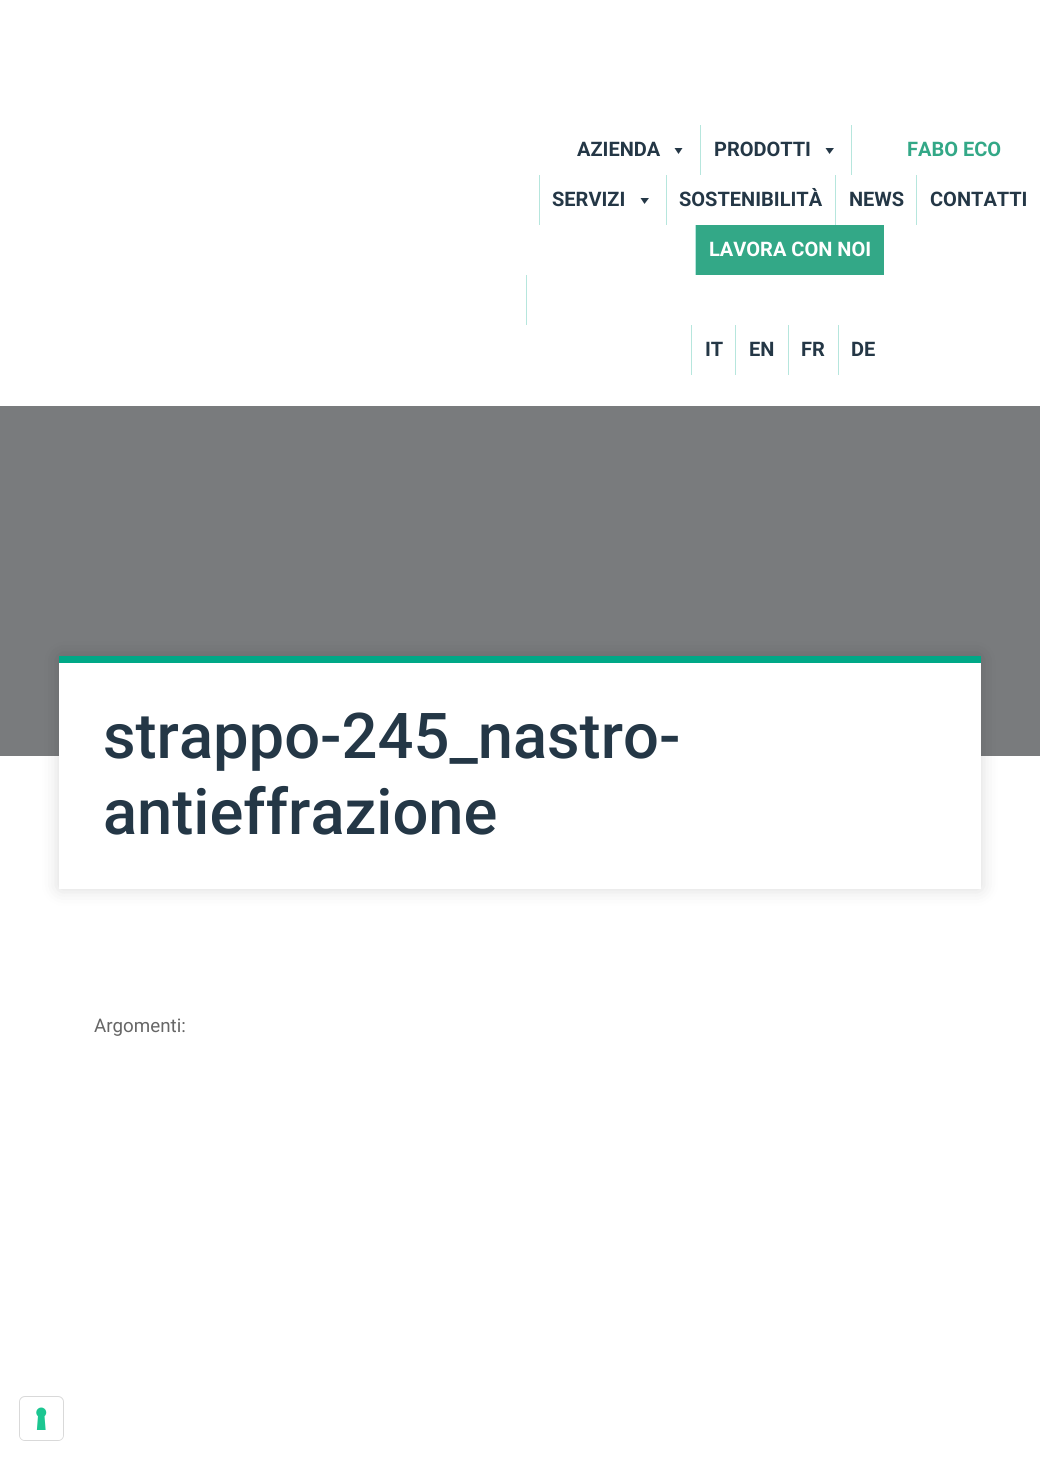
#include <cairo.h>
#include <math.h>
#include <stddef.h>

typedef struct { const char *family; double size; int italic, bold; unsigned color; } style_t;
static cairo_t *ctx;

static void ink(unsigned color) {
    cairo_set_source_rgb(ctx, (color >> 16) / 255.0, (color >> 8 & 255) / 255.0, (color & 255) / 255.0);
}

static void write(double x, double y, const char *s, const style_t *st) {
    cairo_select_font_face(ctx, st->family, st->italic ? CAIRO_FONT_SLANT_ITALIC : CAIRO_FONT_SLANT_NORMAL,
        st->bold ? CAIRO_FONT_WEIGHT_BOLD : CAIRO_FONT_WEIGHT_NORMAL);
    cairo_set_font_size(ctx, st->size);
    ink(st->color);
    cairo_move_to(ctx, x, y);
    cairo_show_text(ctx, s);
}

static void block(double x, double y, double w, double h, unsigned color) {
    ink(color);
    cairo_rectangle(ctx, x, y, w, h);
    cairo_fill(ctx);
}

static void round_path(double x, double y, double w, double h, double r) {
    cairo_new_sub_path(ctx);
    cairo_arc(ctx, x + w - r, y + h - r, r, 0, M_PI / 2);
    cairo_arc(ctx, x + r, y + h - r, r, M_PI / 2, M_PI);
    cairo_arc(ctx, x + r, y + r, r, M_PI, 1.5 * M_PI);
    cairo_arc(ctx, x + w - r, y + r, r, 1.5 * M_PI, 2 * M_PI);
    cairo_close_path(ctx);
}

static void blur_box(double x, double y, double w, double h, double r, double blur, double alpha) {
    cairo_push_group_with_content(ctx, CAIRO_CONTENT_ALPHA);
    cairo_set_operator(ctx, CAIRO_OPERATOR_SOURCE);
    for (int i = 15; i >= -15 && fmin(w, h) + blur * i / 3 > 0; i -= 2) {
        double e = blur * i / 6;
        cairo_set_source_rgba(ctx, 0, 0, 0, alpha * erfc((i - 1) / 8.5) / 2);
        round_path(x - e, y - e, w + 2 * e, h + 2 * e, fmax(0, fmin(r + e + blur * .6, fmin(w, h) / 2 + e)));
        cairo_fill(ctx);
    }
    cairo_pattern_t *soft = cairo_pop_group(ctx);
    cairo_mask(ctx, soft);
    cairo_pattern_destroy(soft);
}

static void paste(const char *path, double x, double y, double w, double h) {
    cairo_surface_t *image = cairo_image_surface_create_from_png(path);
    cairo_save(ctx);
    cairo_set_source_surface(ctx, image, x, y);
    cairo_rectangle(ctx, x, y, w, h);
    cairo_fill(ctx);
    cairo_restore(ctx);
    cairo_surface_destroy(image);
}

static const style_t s1 = {"Roboto", 20, 0, 1, 0x243746};
static const style_t s2 = {"Roboto", 20, 0, 1, 0x33a887};
static const style_t s3 = {"Roboto", 20, 0, 1, 0xffffff};
static const style_t s4 = {"Roboto Medium", 63.25, 0, 0, 0x243746};
static const style_t s5 = {"Roboto", 18.75, 0, 0, 0x666666};

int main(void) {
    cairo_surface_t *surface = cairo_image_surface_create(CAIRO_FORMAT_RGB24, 1040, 1460);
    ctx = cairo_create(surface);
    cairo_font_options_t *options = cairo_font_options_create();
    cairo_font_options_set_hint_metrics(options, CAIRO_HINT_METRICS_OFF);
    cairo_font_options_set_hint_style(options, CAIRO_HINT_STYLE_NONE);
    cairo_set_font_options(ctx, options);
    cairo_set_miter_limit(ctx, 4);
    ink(0xffffff);
    cairo_paint(ctx);
    write(577, 156, "AZIENDA", &s1);
    cairo_new_path(ctx);
    cairo_move_to(ctx, 682.5, 148);
    cairo_line_to(ctx, 678.5, 154);
    cairo_line_to(ctx, 674.5, 148);
    cairo_close_path(ctx);
    cairo_fill(ctx);
    block(700, 125, 1, 50, 0xb6e6dd);
    write(714, 156, "PRODOTTI", &s1);
    cairo_new_path(ctx);
    cairo_move_to(ctx, 834, 148);
    cairo_line_to(ctx, 829.5, 154);
    cairo_line_to(ctx, 825.5, 148);
    cairo_close_path(ctx);
    cairo_fill(ctx);
    block(851, 125, 1, 50, 0xb6e6dd);
    write(907, 156, "FABO ECO", &s2);
    block(539, 175, 1, 50, 0xb6e6dd);
    write(552, 206, "SERVIZI", &s1);
    cairo_new_path(ctx);
    cairo_move_to(ctx, 649, 198);
    cairo_line_to(ctx, 644.5, 204);
    cairo_line_to(ctx, 640.5, 198);
    cairo_close_path(ctx);
    cairo_fill(ctx);
    block(666, 175, 1, 50, 0xb6e6dd);
    write(679, 206, "SOSTENIBILITÀ", &s1);
    block(835, 175, 1, 50, 0xb6e6dd);
    write(849, 206, "NEWS", &s1);
    block(916, 175, 1, 50, 0xb6e6dd);
    write(930, 206, "CONTATTI", &s1);
    block(695, 225, 1, 50, 0xb6e6dd);
    block(696, 225, 188, 50, 0x33a887);
    write(709, 256, "LAVORA CON NOI", &s3);
    block(526, 275, 1, 50, 0xb6e6dd);
    block(691, 325, 1, 50, 0xb6e6dd);
    write(705, 356, "IT", &s1);
    block(735, 325, 1, 50, 0xb6e6dd);
    write(749, 356, "EN", &s1);
    block(788, 325, 1, 50, 0xb6e6dd);
    write(801, 356, "FR", &s1);
    block(838, 325, 1, 50, 0xb6e6dd);
    write(851, 356, "DE", &s1);
    block(0, 406, 1040, 350, 0x797b7d);
    ink(0x000000);
    blur_box(59, 656, 922, 233, 0, 9.5, 0.15);
    block(59, 663, 922, 226, 0xffffff);
    block(59, 656, 922, 7, 0x00a887);
    write(103, 758, "strappo-245_nastro-", &s4);
    write(103, 834, "antieffrazione", &s4);
    write(94, 1032, "Argomenti:", &s5);
    round_path(19.5, 1396.5, 44, 44, 5.5);
    ink(0xd9d9d9);
    cairo_set_line_width(ctx, 1);
    cairo_stroke(ctx);
    ink(0xffffff);
    round_path(20, 1398, 43, 42, 5);
    cairo_fill(ctx);
    paste("pic1.png", 36, 1407, 11, 23);
    cairo_surface_write_to_png(surface, "screenshot.png");
    cairo_font_options_destroy(options);
    cairo_destroy(ctx);
    cairo_surface_destroy(surface);
    return 0;
}
